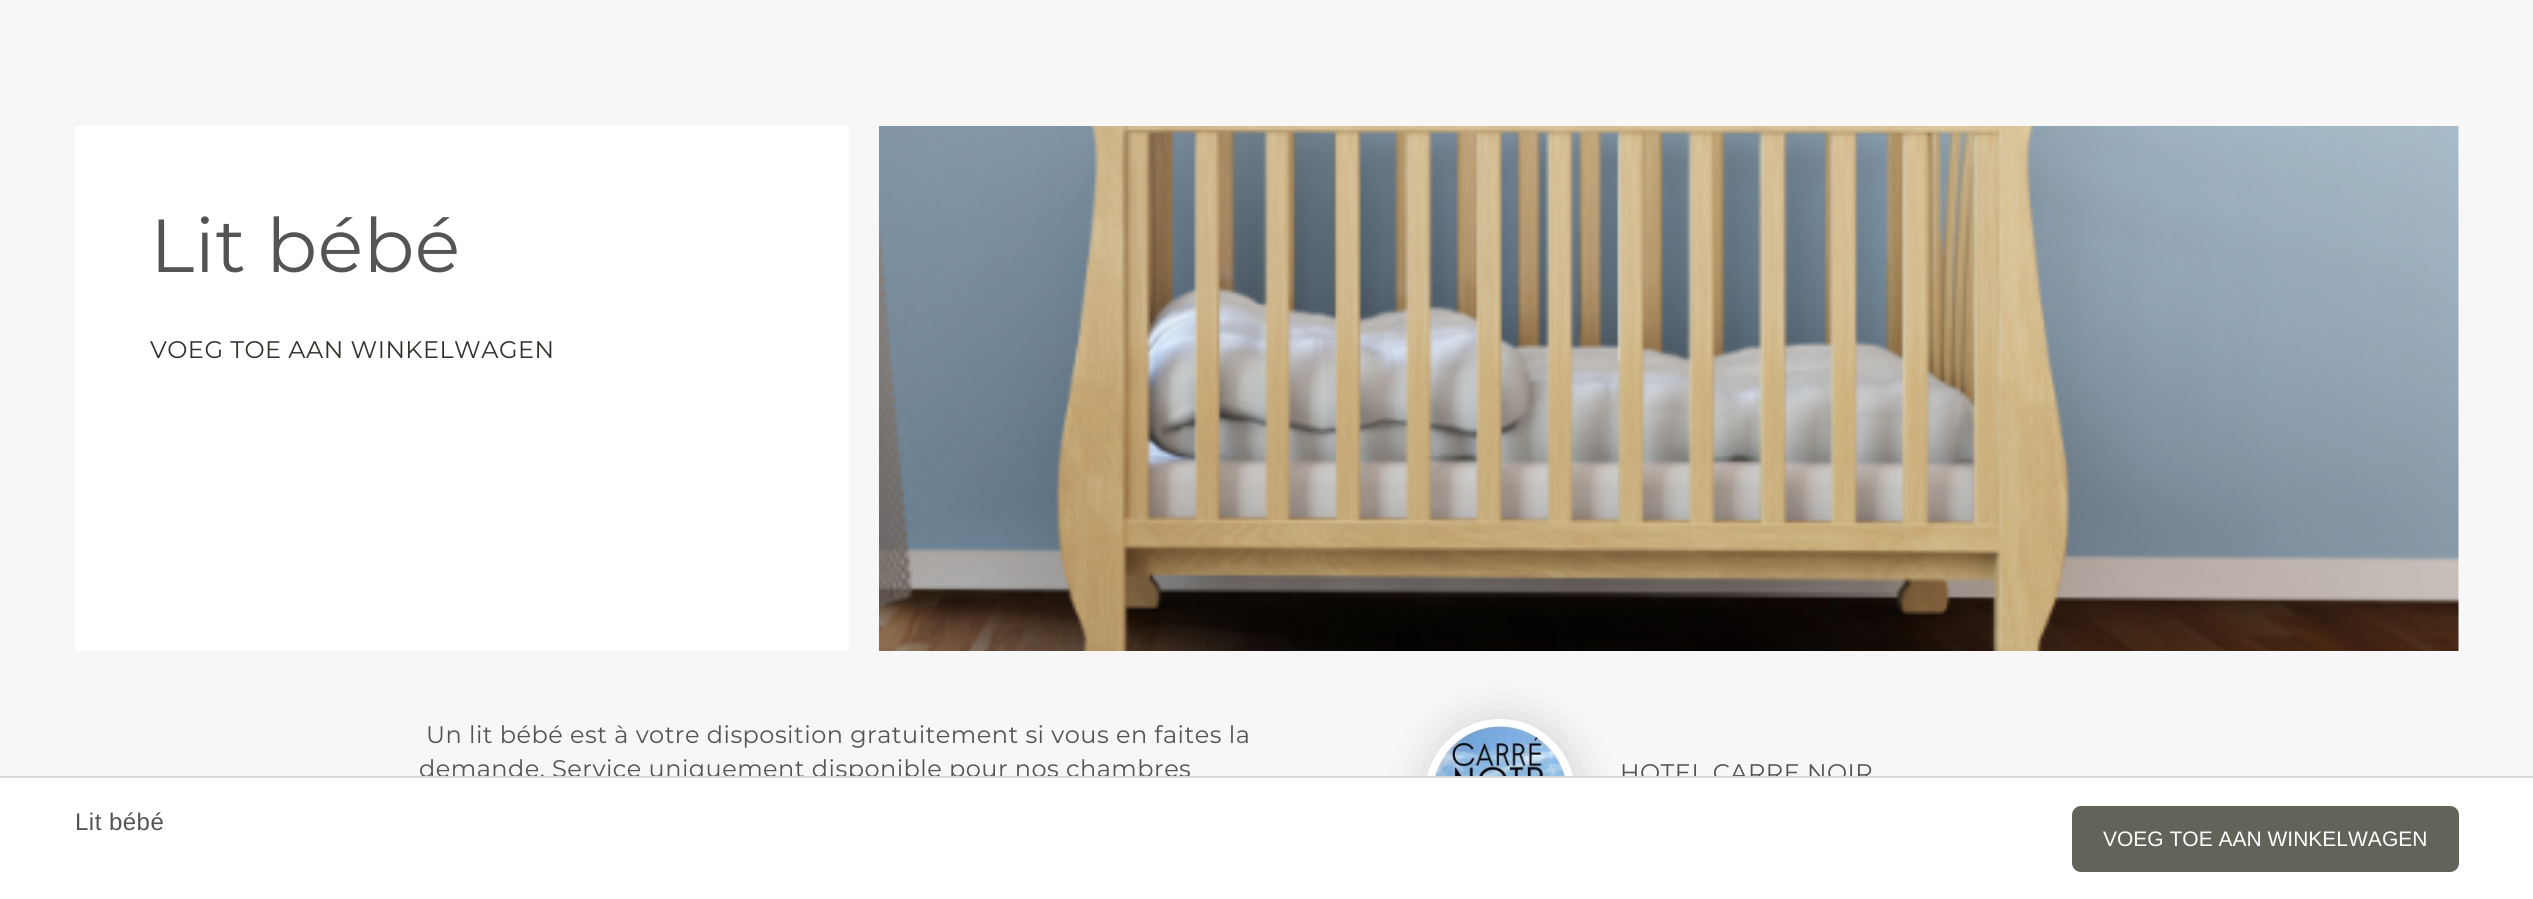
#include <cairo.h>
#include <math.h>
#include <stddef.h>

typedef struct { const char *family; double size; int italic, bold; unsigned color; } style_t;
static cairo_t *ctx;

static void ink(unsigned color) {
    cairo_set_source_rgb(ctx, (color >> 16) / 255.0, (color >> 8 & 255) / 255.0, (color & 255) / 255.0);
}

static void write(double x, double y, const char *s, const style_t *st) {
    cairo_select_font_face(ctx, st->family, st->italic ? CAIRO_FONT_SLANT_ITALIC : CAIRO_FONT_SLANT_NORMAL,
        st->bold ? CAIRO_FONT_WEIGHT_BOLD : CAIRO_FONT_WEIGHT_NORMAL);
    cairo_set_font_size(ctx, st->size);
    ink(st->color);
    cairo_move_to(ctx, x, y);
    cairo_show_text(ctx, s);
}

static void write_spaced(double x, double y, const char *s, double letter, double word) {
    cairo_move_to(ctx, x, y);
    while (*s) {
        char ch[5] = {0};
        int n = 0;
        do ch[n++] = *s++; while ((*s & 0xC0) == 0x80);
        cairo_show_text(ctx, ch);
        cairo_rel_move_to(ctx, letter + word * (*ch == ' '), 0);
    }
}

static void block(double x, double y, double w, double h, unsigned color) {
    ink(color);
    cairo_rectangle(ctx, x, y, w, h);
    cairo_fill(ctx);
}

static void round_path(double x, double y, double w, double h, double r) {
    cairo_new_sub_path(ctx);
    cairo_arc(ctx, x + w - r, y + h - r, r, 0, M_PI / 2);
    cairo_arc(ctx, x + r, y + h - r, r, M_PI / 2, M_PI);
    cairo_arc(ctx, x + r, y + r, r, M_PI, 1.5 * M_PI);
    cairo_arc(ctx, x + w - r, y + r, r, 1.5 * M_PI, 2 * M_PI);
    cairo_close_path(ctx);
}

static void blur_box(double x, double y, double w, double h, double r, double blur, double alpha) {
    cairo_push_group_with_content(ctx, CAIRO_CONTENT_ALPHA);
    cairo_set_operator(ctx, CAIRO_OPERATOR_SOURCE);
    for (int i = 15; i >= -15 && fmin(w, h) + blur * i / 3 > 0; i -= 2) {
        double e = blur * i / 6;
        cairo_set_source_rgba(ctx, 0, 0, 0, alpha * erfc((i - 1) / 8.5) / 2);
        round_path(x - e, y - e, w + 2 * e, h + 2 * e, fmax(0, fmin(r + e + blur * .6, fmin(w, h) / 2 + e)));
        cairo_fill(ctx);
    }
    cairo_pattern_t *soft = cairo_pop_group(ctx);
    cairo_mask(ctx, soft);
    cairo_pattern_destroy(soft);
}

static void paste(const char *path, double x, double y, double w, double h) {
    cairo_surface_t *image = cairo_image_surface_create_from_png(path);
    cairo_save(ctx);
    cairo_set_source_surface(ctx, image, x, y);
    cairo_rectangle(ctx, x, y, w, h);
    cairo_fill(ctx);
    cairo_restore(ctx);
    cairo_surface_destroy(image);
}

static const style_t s1 = {"Liberation Sans", 21, 0, 0, 0xffffff};

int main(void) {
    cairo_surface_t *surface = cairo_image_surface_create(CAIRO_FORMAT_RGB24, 2533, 899);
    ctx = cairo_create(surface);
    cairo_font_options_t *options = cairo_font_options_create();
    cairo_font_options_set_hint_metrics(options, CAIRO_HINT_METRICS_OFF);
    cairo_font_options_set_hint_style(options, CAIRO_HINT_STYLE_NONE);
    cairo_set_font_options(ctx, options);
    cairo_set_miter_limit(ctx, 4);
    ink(0xf7f7f7);
    cairo_paint(ctx);
    block(75, 126, 774, 525, 0xffffff);
    cairo_select_font_face(ctx, "Montserrat Thin", CAIRO_FONT_SLANT_NORMAL, CAIRO_FONT_WEIGHT_NORMAL);
    cairo_set_font_size(ctx, 75);
    ink(0x545454);
    write_spaced(150, 272, "Lit bébé", 0.48, 0);
    cairo_set_font_size(ctx, 24);
    ink(0x32322b);
    write_spaced(150, 358, "VOEG TOE AAN WINKELWAGEN", 0.48, 0);
    paste("pic1.png", 879, 126, 1580, 525);
    ink(0x545454);
    write_spaced(426, 743, "Un lit bébé est à votre disposition gratuitement si vous en faites la", 0.48, 0);
    write_spaced(419, 777, "demande. Service uniquement disponible pour nos chambres", 0.48, 0);
    ink(0x000000);
    blur_box(1427, 720, 150, 150, 75, 22.5, 0.15);
    cairo_arc(ctx, 1500, 794, 71, 0, 2 * M_PI);
    ink(0xffffff);
    cairo_set_line_width(ctx, 8);
    cairo_stroke(ctx);
    paste("pic2.png", 1434, 726, 132, 50);
    ink(0x545454);
    write_spaced(1620, 781, "HOTEL CARRE NOIR", 0.48, 0);
    block(0, 778, 2533, 121, 0xffffff);
    block(0, 776, 2533, 2, 0xd9d9d9);
    cairo_select_font_face(ctx, "Liberation Sans", CAIRO_FONT_SLANT_NORMAL, CAIRO_FONT_WEIGHT_NORMAL);
    ink(0x545454);
    write_spaced(75, 830, "Lit bébé", 0.48, 0);
    ink(0x63635a);
    round_path(2072, 806, 387, 66, 9);
    cairo_fill(ctx);
    write(2103, 846, "VOEG TOE AAN WINKELWAGEN", &s1);
    cairo_surface_write_to_png(surface, "screenshot.png");
    cairo_font_options_destroy(options);
    cairo_destroy(ctx);
    cairo_surface_destroy(surface);
    return 0;
}
